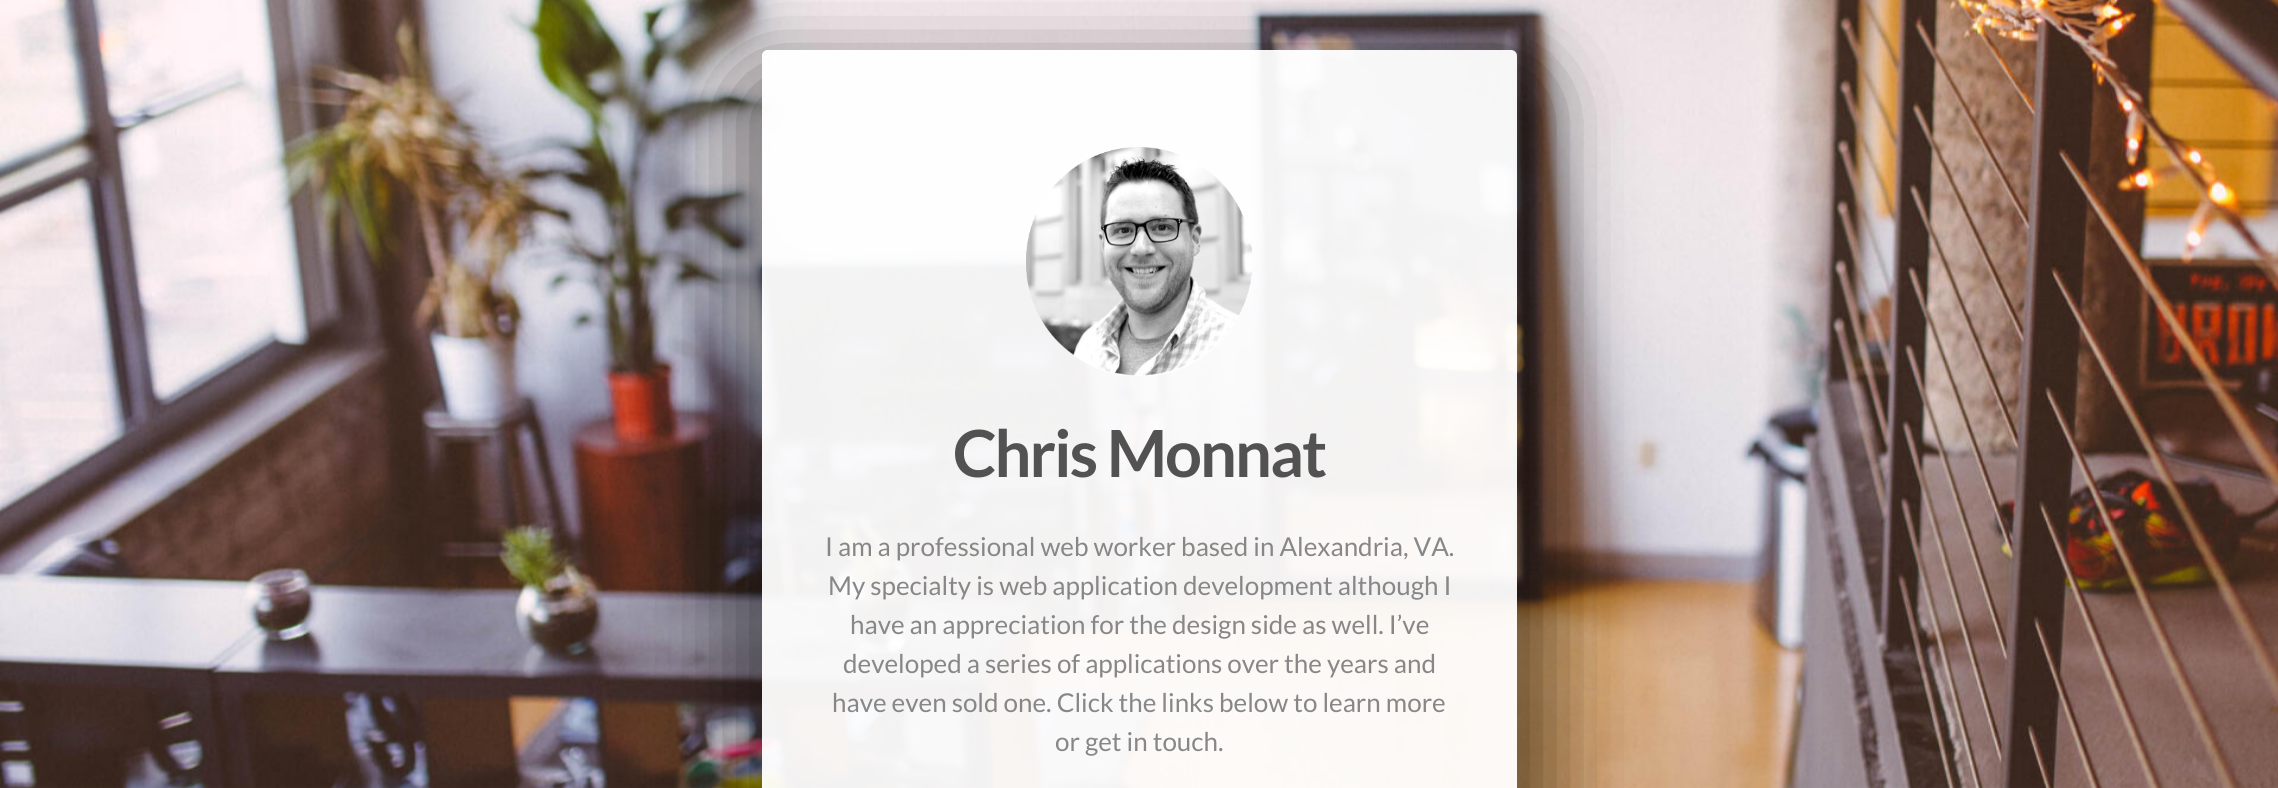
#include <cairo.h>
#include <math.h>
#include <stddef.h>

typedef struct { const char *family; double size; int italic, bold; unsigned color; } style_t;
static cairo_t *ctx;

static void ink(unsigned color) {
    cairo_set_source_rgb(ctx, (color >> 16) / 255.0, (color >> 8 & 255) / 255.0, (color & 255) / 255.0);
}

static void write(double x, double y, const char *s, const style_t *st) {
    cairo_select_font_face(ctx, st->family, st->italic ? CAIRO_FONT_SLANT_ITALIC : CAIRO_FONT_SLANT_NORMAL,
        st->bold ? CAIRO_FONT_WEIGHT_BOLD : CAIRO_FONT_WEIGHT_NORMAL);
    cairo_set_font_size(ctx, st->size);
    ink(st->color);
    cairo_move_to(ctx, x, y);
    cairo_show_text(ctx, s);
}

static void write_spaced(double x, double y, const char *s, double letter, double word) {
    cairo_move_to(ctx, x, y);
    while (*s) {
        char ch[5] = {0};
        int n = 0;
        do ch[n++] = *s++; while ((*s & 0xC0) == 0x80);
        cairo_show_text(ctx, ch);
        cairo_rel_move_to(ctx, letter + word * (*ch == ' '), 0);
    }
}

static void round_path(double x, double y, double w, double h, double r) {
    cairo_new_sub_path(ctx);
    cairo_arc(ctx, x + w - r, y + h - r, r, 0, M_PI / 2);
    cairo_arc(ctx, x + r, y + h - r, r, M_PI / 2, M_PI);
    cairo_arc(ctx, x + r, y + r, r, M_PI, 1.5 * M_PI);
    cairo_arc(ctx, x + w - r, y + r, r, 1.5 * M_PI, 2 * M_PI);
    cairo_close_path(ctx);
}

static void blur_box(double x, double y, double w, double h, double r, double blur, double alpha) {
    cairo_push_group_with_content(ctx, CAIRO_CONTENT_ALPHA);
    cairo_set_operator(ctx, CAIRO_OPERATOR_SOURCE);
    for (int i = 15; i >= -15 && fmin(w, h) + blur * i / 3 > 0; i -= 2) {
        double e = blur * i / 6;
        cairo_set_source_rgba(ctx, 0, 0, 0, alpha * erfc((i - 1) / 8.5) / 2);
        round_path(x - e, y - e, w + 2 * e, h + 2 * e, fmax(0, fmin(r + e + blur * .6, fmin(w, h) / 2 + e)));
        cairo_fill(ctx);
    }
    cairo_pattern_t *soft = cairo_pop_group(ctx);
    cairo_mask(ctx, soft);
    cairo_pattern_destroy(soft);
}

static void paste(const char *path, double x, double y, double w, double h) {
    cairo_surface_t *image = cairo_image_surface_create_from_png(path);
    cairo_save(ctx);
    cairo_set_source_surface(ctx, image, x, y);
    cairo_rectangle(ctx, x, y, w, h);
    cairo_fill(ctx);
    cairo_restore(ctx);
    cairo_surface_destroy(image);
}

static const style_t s1 = {"Lato", 26, 0, 0, 0x878787};

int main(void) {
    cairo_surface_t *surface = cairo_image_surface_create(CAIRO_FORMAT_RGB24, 2278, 788);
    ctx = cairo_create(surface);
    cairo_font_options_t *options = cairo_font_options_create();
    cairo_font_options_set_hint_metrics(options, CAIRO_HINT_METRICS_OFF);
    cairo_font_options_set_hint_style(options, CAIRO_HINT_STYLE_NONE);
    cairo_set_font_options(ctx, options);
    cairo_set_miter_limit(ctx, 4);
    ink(0xffffff);
    cairo_paint(ctx);
    paste("pic1.png", 0, 0, 2278, 788);
    cairo_save(ctx);
    cairo_set_fill_rule(ctx, CAIRO_FILL_RULE_EVEN_ODD);
    cairo_new_path(ctx);
    cairo_move_to(ctx, 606, 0);
    cairo_line_to(ctx, 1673, 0);
    cairo_line_to(ctx, 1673, 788);
    cairo_line_to(ctx, 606, 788);
    cairo_close_path(ctx);
    cairo_move_to(ctx, 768, 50);
    cairo_line_to(ctx, 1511, 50);
    cairo_curve_to(ctx, 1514.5, 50, 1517, 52.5, 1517, 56);
    cairo_line_to(ctx, 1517, 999);
    cairo_curve_to(ctx, 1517, 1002.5, 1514.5, 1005, 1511, 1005);
    cairo_line_to(ctx, 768, 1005);
    cairo_curve_to(ctx, 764.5, 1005, 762, 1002.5, 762, 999);
    cairo_line_to(ctx, 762, 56);
    cairo_curve_to(ctx, 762, 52.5, 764.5, 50, 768, 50);
    cairo_close_path(ctx);
    cairo_clip(ctx);
    ink(0x000000);
    blur_box(729, 63, 821, 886, 39, 40.5, 0.51);
    cairo_restore(ctx);
    cairo_set_source_rgba(ctx, 1, 1, 1, 0.94);
    round_path(762, 50, 755, 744, 6);
    cairo_fill(ctx);
    paste("pic2.png", 1026, 147, 226, 229);
    cairo_select_font_face(ctx, "Lato", CAIRO_FONT_SLANT_NORMAL, CAIRO_FONT_WEIGHT_BOLD);
    cairo_set_font_size(ctx, 65);
    ink(0x525252);
    write_spaced(953, 477, "Chris Monnat", -2, 0);
    write(825, 556, "I am a professional web worker based in Alexandria, VA.", &s1);
    write(828, 595, "My specialty is web application development although I", &s1);
    write(850, 634, "have an appreciation for the design side as well. I’ve", &s1);
    write(843, 673, "developed a series of applications over the years and", &s1);
    write(832, 712, "have even sold one. Click the links below to learn more", &s1);
    write(1055, 751, "or get in touch.", &s1);
    cairo_surface_write_to_png(surface, "screenshot.png");
    cairo_font_options_destroy(options);
    cairo_destroy(ctx);
    cairo_surface_destroy(surface);
    return 0;
}
